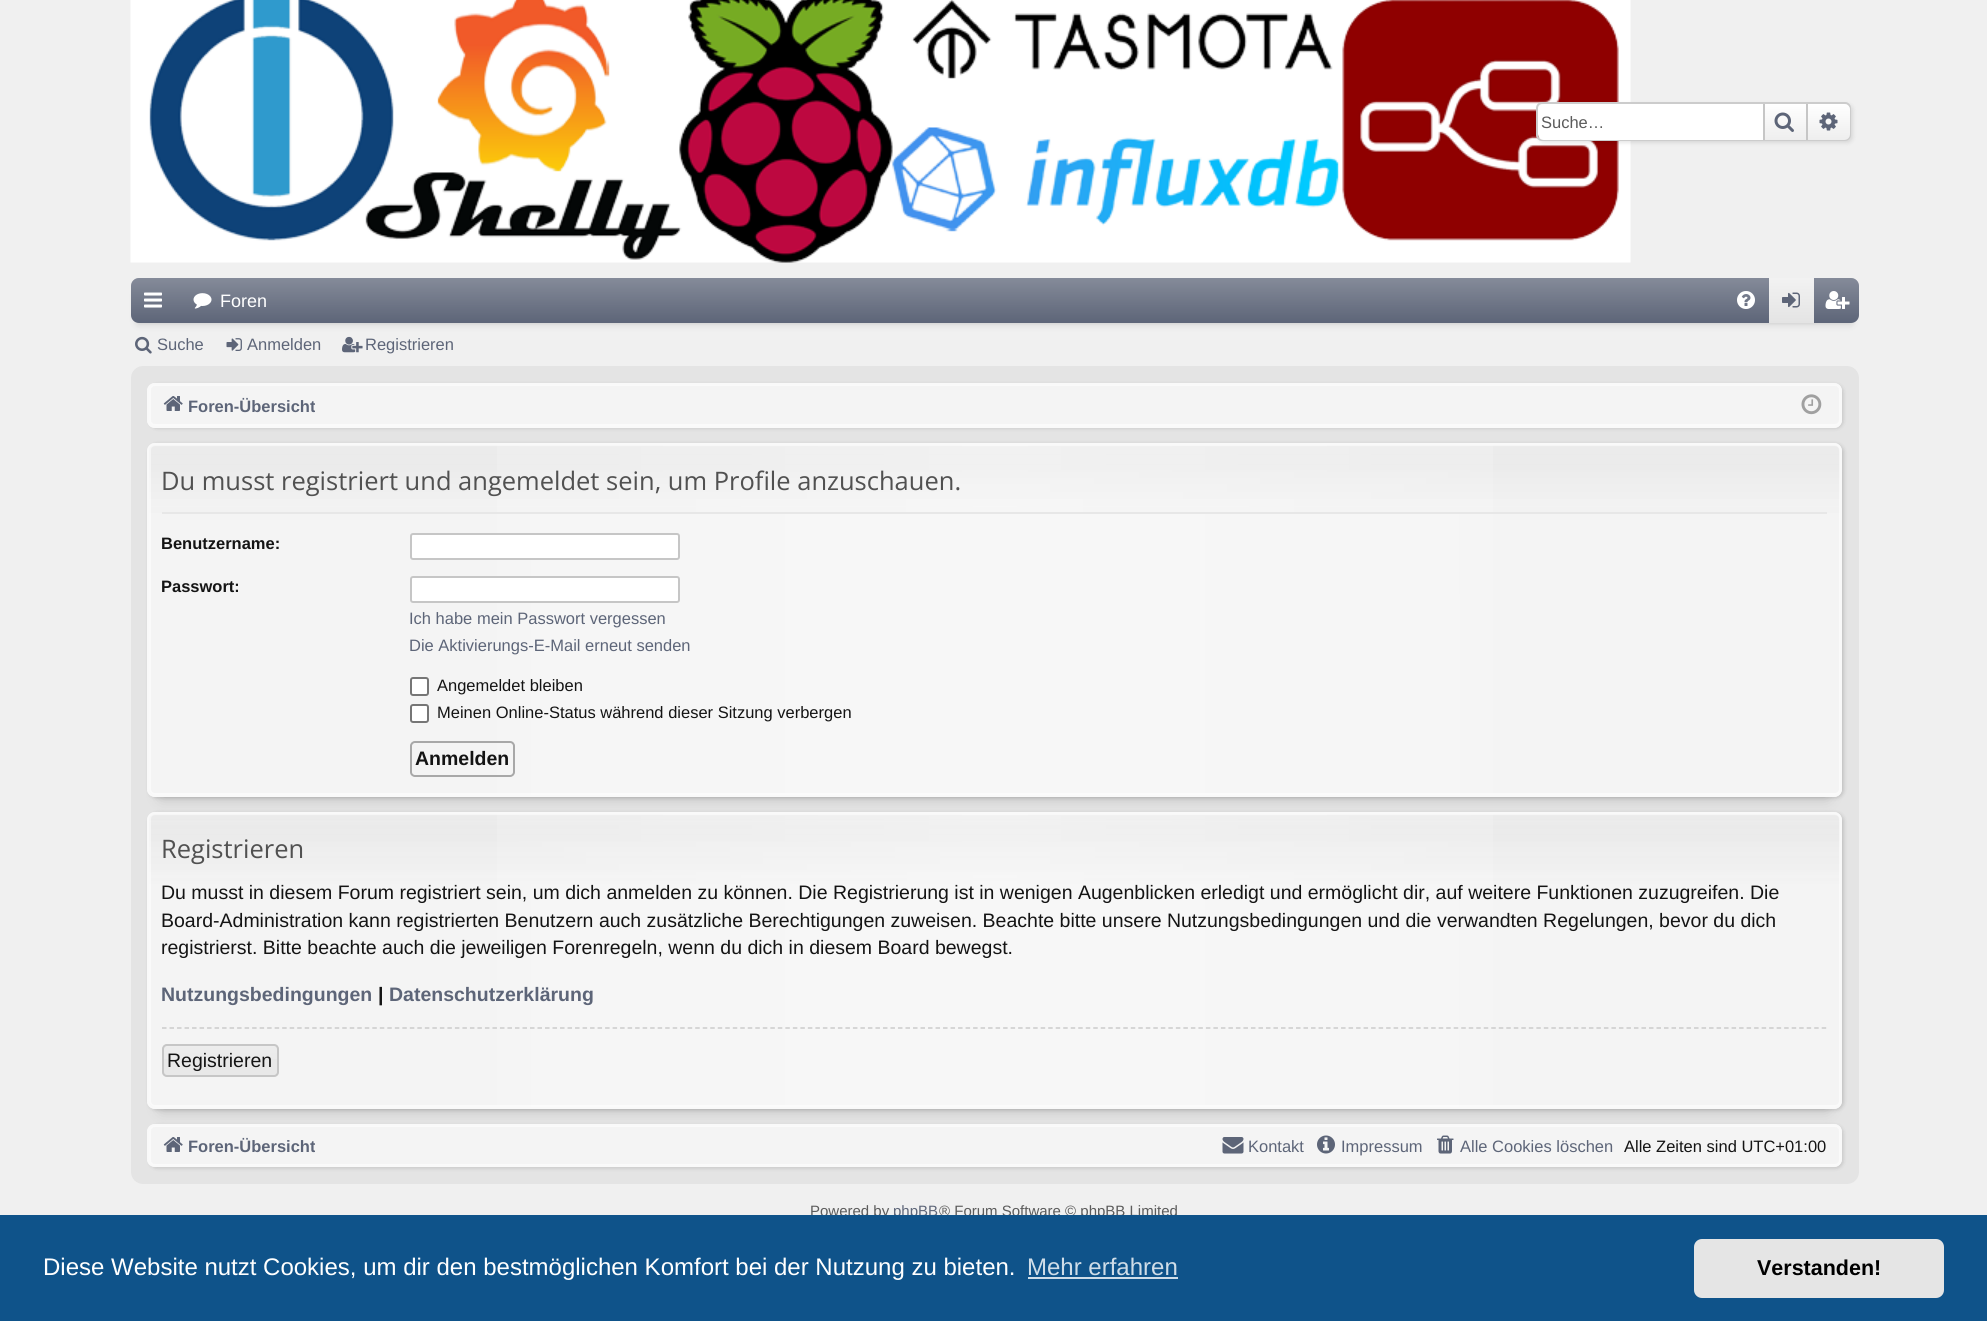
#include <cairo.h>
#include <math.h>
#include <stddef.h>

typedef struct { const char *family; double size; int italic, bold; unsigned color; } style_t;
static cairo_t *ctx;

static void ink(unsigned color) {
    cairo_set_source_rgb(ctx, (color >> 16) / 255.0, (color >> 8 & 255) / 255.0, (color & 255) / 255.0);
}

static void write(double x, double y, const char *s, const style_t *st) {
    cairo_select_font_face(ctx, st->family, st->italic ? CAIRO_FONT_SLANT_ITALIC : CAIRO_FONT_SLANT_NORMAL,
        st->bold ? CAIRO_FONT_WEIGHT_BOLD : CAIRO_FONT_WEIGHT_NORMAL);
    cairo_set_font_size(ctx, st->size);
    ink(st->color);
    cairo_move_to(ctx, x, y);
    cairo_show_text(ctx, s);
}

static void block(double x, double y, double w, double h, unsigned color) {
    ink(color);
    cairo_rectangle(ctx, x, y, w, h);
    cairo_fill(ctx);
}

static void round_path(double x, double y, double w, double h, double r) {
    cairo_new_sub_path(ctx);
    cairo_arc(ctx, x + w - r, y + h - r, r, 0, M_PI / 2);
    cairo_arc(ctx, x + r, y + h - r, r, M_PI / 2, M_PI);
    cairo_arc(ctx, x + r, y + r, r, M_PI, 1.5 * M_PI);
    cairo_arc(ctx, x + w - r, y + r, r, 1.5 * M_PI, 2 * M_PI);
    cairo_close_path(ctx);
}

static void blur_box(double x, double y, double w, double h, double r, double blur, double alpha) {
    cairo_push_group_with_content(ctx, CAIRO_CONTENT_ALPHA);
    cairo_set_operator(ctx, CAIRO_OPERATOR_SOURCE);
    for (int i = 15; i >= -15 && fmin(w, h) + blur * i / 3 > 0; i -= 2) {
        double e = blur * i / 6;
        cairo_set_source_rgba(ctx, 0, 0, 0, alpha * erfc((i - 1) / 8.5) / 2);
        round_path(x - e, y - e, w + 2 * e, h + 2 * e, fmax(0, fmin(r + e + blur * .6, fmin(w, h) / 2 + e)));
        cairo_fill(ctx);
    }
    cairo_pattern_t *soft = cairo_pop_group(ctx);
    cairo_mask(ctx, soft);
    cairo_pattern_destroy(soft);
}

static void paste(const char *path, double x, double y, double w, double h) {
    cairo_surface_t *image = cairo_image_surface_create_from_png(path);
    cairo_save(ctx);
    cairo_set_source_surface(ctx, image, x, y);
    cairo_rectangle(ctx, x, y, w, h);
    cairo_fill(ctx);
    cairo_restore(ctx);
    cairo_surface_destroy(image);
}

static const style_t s1 = {"Liberation Sans", 16.5, 0, 0, 0x5b5b5b};
static const style_t s2 = {"Liberation Sans", 18, 0, 0, 0xffffff};
static const style_t s3 = {"Liberation Sans", 16.5, 0, 0, 0x5d6578};
static const style_t s4 = {"Liberation Sans", 16.5, 0, 1, 0x5d6578};
static const style_t s5 = {"Open Sans", 25.5, 0, 0, 0x515151};
static const style_t s6 = {"Liberation Sans", 16.5, 0, 1, 0x141414};
static const style_t s7 = {"Liberation Sans", 16.5, 0, 0, 0x141414};
static const style_t s8 = {"Liberation Sans", 19.5, 0, 1, 0x141414};
static const style_t s9 = {"Liberation Sans", 19.5, 0, 0, 0x141414};
static const style_t s10 = {"Liberation Sans", 19.5, 0, 1, 0x5d6578};
static const style_t s11 = {"Liberation Sans", 15, 0, 0, 0x5b5b5b};
static const style_t s12 = {"Liberation Sans", 15, 0, 0, 0x5d6578};
static const style_t s13 = {"Liberation Sans", 24, 0, 0, 0xffffff};
static const style_t s14 = {"Liberation Sans", 24, 0, 0, 0xcfdde8};
static const style_t s15 = {"Liberation Sans", 21.5, 0, 1, 0x000000};

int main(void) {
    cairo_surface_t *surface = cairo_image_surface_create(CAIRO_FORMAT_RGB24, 1987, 1321);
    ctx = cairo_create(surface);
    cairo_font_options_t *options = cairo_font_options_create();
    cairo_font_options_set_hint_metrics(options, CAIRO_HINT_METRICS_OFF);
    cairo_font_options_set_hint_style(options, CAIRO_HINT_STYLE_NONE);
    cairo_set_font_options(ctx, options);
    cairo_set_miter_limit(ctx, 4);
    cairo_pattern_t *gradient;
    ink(0xf0f0f0);
    cairo_paint(ctx);
    paste("pic1.png", 130, 0, 1501, 263);
    ink(0x000000);
    blur_box(1538, 104, 315, 39, 6, 2, 0.1);
    round_path(1537, 103, 313, 37, 5);
    ink(0xcccccc);
    cairo_stroke(ctx);
    ink(0xffffff);
    cairo_new_path(ctx);
    cairo_move_to(ctx, 1544, 104);
    cairo_line_to(ctx, 1763, 104);
    cairo_line_to(ctx, 1763, 140);
    cairo_line_to(ctx, 1544, 140);
    cairo_curve_to(ctx, 1540.5, 140, 1538, 137.5, 1538, 134);
    cairo_line_to(ctx, 1538, 110);
    cairo_curve_to(ctx, 1538, 106.5, 1540.5, 104, 1544, 104);
    cairo_close_path(ctx);
    cairo_fill(ctx);
    write(1541, 128, "Suche…", &s1);
    gradient = cairo_pattern_create_linear(1785, 104, 1785, 140);
    cairo_pattern_add_color_stop_rgba(gradient, 0, 1, 1, 1, 1);
    cairo_pattern_add_color_stop_rgba(gradient, 1, 0.933, 0.933, 0.933, 1);
    cairo_set_source(ctx, gradient);
    cairo_pattern_destroy(gradient);
    cairo_rectangle(ctx, 1765, 104, 41, 36);
    cairo_fill(ctx);
    block(1806, 104, 2, 36, 0xc6c6c6);
    block(1763, 104, 2, 36, 0xc6c6c6);
    paste("pic2.png", 1774, 112, 20, 20);
    ink(0xeeeeee);
    cairo_new_path(ctx);
    cairo_move_to(ctx, 1808, 104);
    cairo_line_to(ctx, 1844, 104);
    cairo_curve_to(ctx, 1847.5, 104, 1850, 106.5, 1850, 110);
    cairo_line_to(ctx, 1850, 134);
    cairo_curve_to(ctx, 1850, 137.5, 1847.5, 140, 1844, 140);
    cairo_line_to(ctx, 1808, 140);
    cairo_close_path(ctx);
    cairo_fill(ctx);
    gradient = cairo_pattern_create_linear(1829, 104, 1829, 140);
    cairo_pattern_add_color_stop_rgba(gradient, 0, 1, 1, 1, 1);
    cairo_pattern_add_color_stop_rgba(gradient, 1, 1, 1, 1, 0);
    cairo_set_source(ctx, gradient);
    cairo_pattern_destroy(gradient);
    cairo_new_path(ctx);
    cairo_move_to(ctx, 1808, 104);
    cairo_line_to(ctx, 1844, 104);
    cairo_curve_to(ctx, 1847.5, 104, 1850, 106.5, 1850, 110);
    cairo_line_to(ctx, 1850, 134);
    cairo_curve_to(ctx, 1850, 137.5, 1847.5, 140, 1844, 140);
    cairo_line_to(ctx, 1808, 140);
    cairo_close_path(ctx);
    cairo_fill(ctx);
    paste("pic3.png", 1819, 112, 19, 19);
    ink(0x000000);
    blur_box(138, 293, 1713, 30, 0, 4, 0.2);
    ink(0x5d6578);
    round_path(131, 278, 1728, 45, 8);
    cairo_fill(ctx);
    gradient = cairo_pattern_create_linear(995, 277, 995, 323);
    cairo_pattern_add_color_stop_rgba(gradient, 0, 1, 1, 1, 0.25);
    cairo_pattern_add_color_stop_rgba(gradient, 1, 1, 1, 1, 0);
    cairo_set_source(ctx, gradient);
    cairo_pattern_destroy(gradient);
    round_path(131, 278, 1728, 45, 8);
    cairo_fill(ctx);
    paste("pic4.png", 144, 292, 18, 16);
    paste("pic5.png", 193, 293, 19, 16);
    write(220, 307, "Foren", &s2);
    paste("pic6.png", 1737, 291, 18, 18);
    gradient = cairo_pattern_create_linear(1791, 278, 1791, 323);
    cairo_pattern_add_color_stop_rgba(gradient, 0, 0.949, 0.949, 0.949, 1);
    cairo_pattern_add_color_stop_rgba(gradient, 1, 0.894, 0.894, 0.894, 1);
    cairo_set_source(ctx, gradient);
    cairo_pattern_destroy(gradient);
    cairo_rectangle(ctx, 1769, 278, 45, 45);
    cairo_fill(ctx);
    paste("pic7.png", 1782, 292, 18, 16);
    paste("pic8.png", 1825, 291, 25, 18);
    paste("pic9.png", 135, 336, 17, 18);
    write(157, 350, "Suche", &s3);
    paste("pic10.png", 226, 338, 16, 13);
    write(247, 350, "Anmelden", &s3);
    paste("pic11.png", 342, 336, 21, 17);
    write(365, 350, "Registrieren", &s3);
    ink(0xe4e4e4);
    round_path(132, 367, 1726, 816, 11);
    cairo_fill_preserve(ctx);
    cairo_stroke(ctx);
    ink(0x000000);
    blur_box(149, 384, 1695, 45, 8, 1.5, 0.1);
    ink(0xf4f4f4);
    round_path(147, 383, 1695, 45, 8);
    cairo_fill(ctx);
    round_path(150, 385, 1690, 40, 5);
    ink(0xfafafa);
    cairo_stroke(ctx);
    round_path(148, 384, 1693, 43, 7);
    ink(0xf9f9f9);
    cairo_stroke(ctx);
    paste("pic12.png", 163, 396, 20, 15);
    cairo_save(ctx);
    cairo_rectangle(ctx, 162, 389, 153, 33);
    cairo_clip(ctx);
    write(188, 412, "Foren-Übersicht", &s4);
    cairo_restore(ctx);
    paste("pic13.png", 1801, 394, 21, 21);
    ink(0x000000);
    blur_box(162, 473, 1665, 324, 0, 7.5, 0.2);
    blur_box(149, 444, 1695, 354, 8, 2, 0.15);
    ink(0xf4f4f4);
    round_path(147, 443, 1695, 354, 8);
    cairo_fill(ctx);
    cairo_save(ctx);
    round_path(147, 443, 1695, 354, 8);
    cairo_clip(ctx);
    gradient = cairo_pattern_create_linear(995, 444, 995, 795);
    cairo_pattern_add_color_stop_rgba(gradient, 0, 0.8, 0.8, 0.8, 0.2);
    cairo_pattern_add_color_stop_rgba(gradient, 0.04, 0.8, 0.8, 0.8, 0.25);
    cairo_pattern_add_color_stop_rgba(gradient, 0.21, 0.8, 0.8, 0.8, 0);
    cairo_set_source(ctx, gradient);
    cairo_pattern_destroy(gradient);
    cairo_rectangle(ctx, 147, 444, 1695, 69);
    cairo_fill(ctx);
    cairo_restore(ctx);
    gradient = cairo_pattern_create_linear(149, 620, 1841, 619);
    cairo_pattern_add_color_stop_rgba(gradient, 0, 1, 1, 1, 0);
    cairo_pattern_add_color_stop_rgba(gradient, 0.5, 1, 1, 1, 0.3);
    cairo_pattern_add_color_stop_rgba(gradient, 1, 1, 1, 1, 0);
    cairo_set_source(ctx, gradient);
    cairo_pattern_destroy(gradient);
    cairo_rectangle(ctx, 497, 445, 996, 350);
    cairo_fill(ctx);
    round_path(150, 445, 1690, 349, 5);
    cairo_set_source_rgba(ctx, 1, 1, 1, 0.5);
    cairo_stroke(ctx);
    round_path(148, 444, 1693, 352, 7);
    ink(0xf9f9f9);
    cairo_stroke(ctx);
    block(162, 512, 1665, 2, 0xe7e7e7);
    write(161, 490, "Du musst registriert und angemeldet sein, um Profile anzuschauen.", &s5);
    write(161, 549, "Benutzername:", &s6);
    ink(0xffffff);
    round_path(411, 534, 268, 25, 2);
    cairo_fill_preserve(ctx);
    ink(0xc6c6c6);
    cairo_stroke(ctx);
    write(161, 592, "Passwort:", &s6);
    ink(0xffffff);
    round_path(411, 577, 268, 25, 2);
    cairo_fill_preserve(ctx);
    ink(0xc6c6c6);
    cairo_stroke(ctx);
    write(409, 624, "Ich habe mein Passwort vergessen", &s3);
    write(409, 651, "Die Aktivierungs-E-Mail erneut senden", &s3);
    ink(0xffffff);
    round_path(411, 678, 17, 17, 2);
    cairo_fill_preserve(ctx);
    ink(0x767676);
    cairo_stroke(ctx);
    write(437, 691, "Angemeldet bleiben", &s7);
    ink(0xffffff);
    round_path(411, 705, 17, 17, 2);
    cairo_fill_preserve(ctx);
    ink(0x767676);
    cairo_stroke(ctx);
    write(437, 718, "Meinen Online-Status während dieser Sitzung verbergen", &s7);
    round_path(411, 742, 103, 34, 4);
    ink(0xa8a8a8);
    cairo_stroke(ctx);
    write(415, 765, "Anmelden", &s8);
    ink(0x000000);
    blur_box(162, 842, 1665, 267, 0, 7.5, 0.2);
    blur_box(149, 813, 1695, 297, 8, 2, 0.15);
    ink(0xf4f4f4);
    round_path(147, 812, 1695, 297, 8);
    cairo_fill(ctx);
    cairo_save(ctx);
    round_path(147, 812, 1695, 297, 8);
    cairo_clip(ctx);
    gradient = cairo_pattern_create_linear(995, 813, 995, 1107);
    cairo_pattern_add_color_stop_rgba(gradient, 0, 0.8, 0.8, 0.8, 0.2);
    cairo_pattern_add_color_stop_rgba(gradient, 0.05, 0.8, 0.8, 0.8, 0.25);
    cairo_pattern_add_color_stop_rgba(gradient, 0.26, 0.8, 0.8, 0.8, 0);
    cairo_set_source(ctx, gradient);
    cairo_pattern_destroy(gradient);
    cairo_rectangle(ctx, 147, 813, 1695, 71);
    cairo_fill(ctx);
    cairo_restore(ctx);
    gradient = cairo_pattern_create_linear(149, 960, 1841, 960);
    cairo_pattern_add_color_stop_rgba(gradient, 0, 1, 1, 1, 0);
    cairo_pattern_add_color_stop_rgba(gradient, 0.5, 1, 1, 1, 0.3);
    cairo_pattern_add_color_stop_rgba(gradient, 1, 1, 1, 1, 0);
    cairo_set_source(ctx, gradient);
    cairo_pattern_destroy(gradient);
    cairo_rectangle(ctx, 497, 814, 996, 293);
    cairo_fill(ctx);
    round_path(150, 814, 1690, 292, 5);
    cairo_set_source_rgba(ctx, 1, 1, 1, 0.5);
    cairo_stroke(ctx);
    round_path(148, 813, 1693, 295, 7);
    ink(0xf9f9f9);
    cairo_stroke(ctx);
    write(161, 858, "Registrieren", &s5);
    write(161, 899, "Du musst in diesem Forum registriert sein, um dich anmelden zu können. Die Registrierung ist in wenigen Augenblicken erledigt und ermöglicht dir, auf weitere Funktionen zuzugreifen. Die", &s9);
    write(161, 927, "Board-Administration kann registrierten Benutzern auch zusätzliche Berechtigungen zuweisen. Beachte bitte unsere Nutzungsbedingungen und die verwandten Regelungen, bevor du dich", &s9);
    write(161, 954, "registrierst. Bitte beachte auch die jeweiligen Forenregeln, wenn du dich in diesem Board bewegst.", &s9);
    write(161, 1001, "Nutzungsbedingungen", &s10);
    write(378, 1001, "|", &s8);
    write(389, 1001, "Datenschutzerklärung", &s10);
    cairo_new_path(ctx);
    cairo_move_to(ctx, 162, 1028);
    cairo_line_to(ctx, 1827, 1028);
    ink(0xcbcbcb);
    cairo_set_line_width(ctx, 1.5);
    cairo_set_dash(ctx, (double[]){4.5, 3.01}, 2, 0);
    cairo_stroke(ctx);
    ink(0xe8e8e8);
    round_path(162, 1044, 117, 33, 5);
    cairo_fill(ctx);
    gradient = cairo_pattern_create_linear(221, 1046, 221, 1076);
    cairo_pattern_add_color_stop_rgba(gradient, 0, 1, 1, 1, 0.2);
    cairo_pattern_add_color_stop_rgba(gradient, 1, 1, 1, 1, 0);
    cairo_set_source(ctx, gradient);
    cairo_pattern_destroy(gradient);
    cairo_rectangle(ctx, 162, 1046, 117, 13);
    cairo_fill(ctx);
    round_path(163, 1045, 115, 31, 4);
    ink(0xc6c6c6);
    cairo_set_line_width(ctx, 2);
    cairo_set_dash(ctx, NULL, 0, 0);
    cairo_stroke(ctx);
    write(167, 1067, "Registrieren", &s9);
    ink(0x000000);
    blur_box(149, 1125, 1695, 44, 8, 1.5, 0.1);
    ink(0xf4f4f4);
    round_path(147, 1124, 1695, 43, 8);
    cairo_fill(ctx);
    round_path(150, 1126, 1690, 39, 5);
    ink(0xfafafa);
    cairo_stroke(ctx);
    round_path(148, 1125, 1693, 41, 7);
    ink(0xf9f9f9);
    cairo_stroke(ctx);
    paste("pic12.png", 163, 1137, 20, 15);
    cairo_save(ctx);
    cairo_rectangle(ctx, 162, 1130, 153, 33);
    cairo_clip(ctx);
    write(188, 1152, "Foren-Übersicht", &s4);
    cairo_restore(ctx);
    paste("pic14.png", 1222, 1137, 22, 17);
    write(1248, 1152, "Kontakt", &s3);
    paste("pic15.png", 1317, 1135, 18, 19);
    write(1341, 1152, "Impressum", &s3);
    paste("pic16.png", 1437, 1135, 17, 19);
    write(1460, 1152, "Alle Cookies löschen", &s3);
    write(1624, 1152, "Alle Zeiten sind UTC+01:00", &s7);
    write(810, 1216, "Powered by", &s11);
    write(893, 1216, "phpBB", &s12);
    write(939, 1216, "® Forum Software © phpBB Limited", &s11);
    block(0, 1215, 1987, 106, 0x0f538a);
    write(43, 1275, "Diese Website nutzt Cookies, um dir den bestmöglichen Komfort bei der Nutzung zu bieten.", &s13);
    write(1027, 1275, "Mehr erfahren", &s14);
    block(1028, 1277, 150, 2, 0xcfdde8);
    ink(0xe5e5e5);
    round_path(1694, 1239, 250, 59, 8);
    cairo_fill(ctx);
    write(1757, 1275, "Verstanden!", &s15);
    cairo_surface_write_to_png(surface, "screenshot.png");
    cairo_font_options_destroy(options);
    cairo_destroy(ctx);
    cairo_surface_destroy(surface);
    return 0;
}
